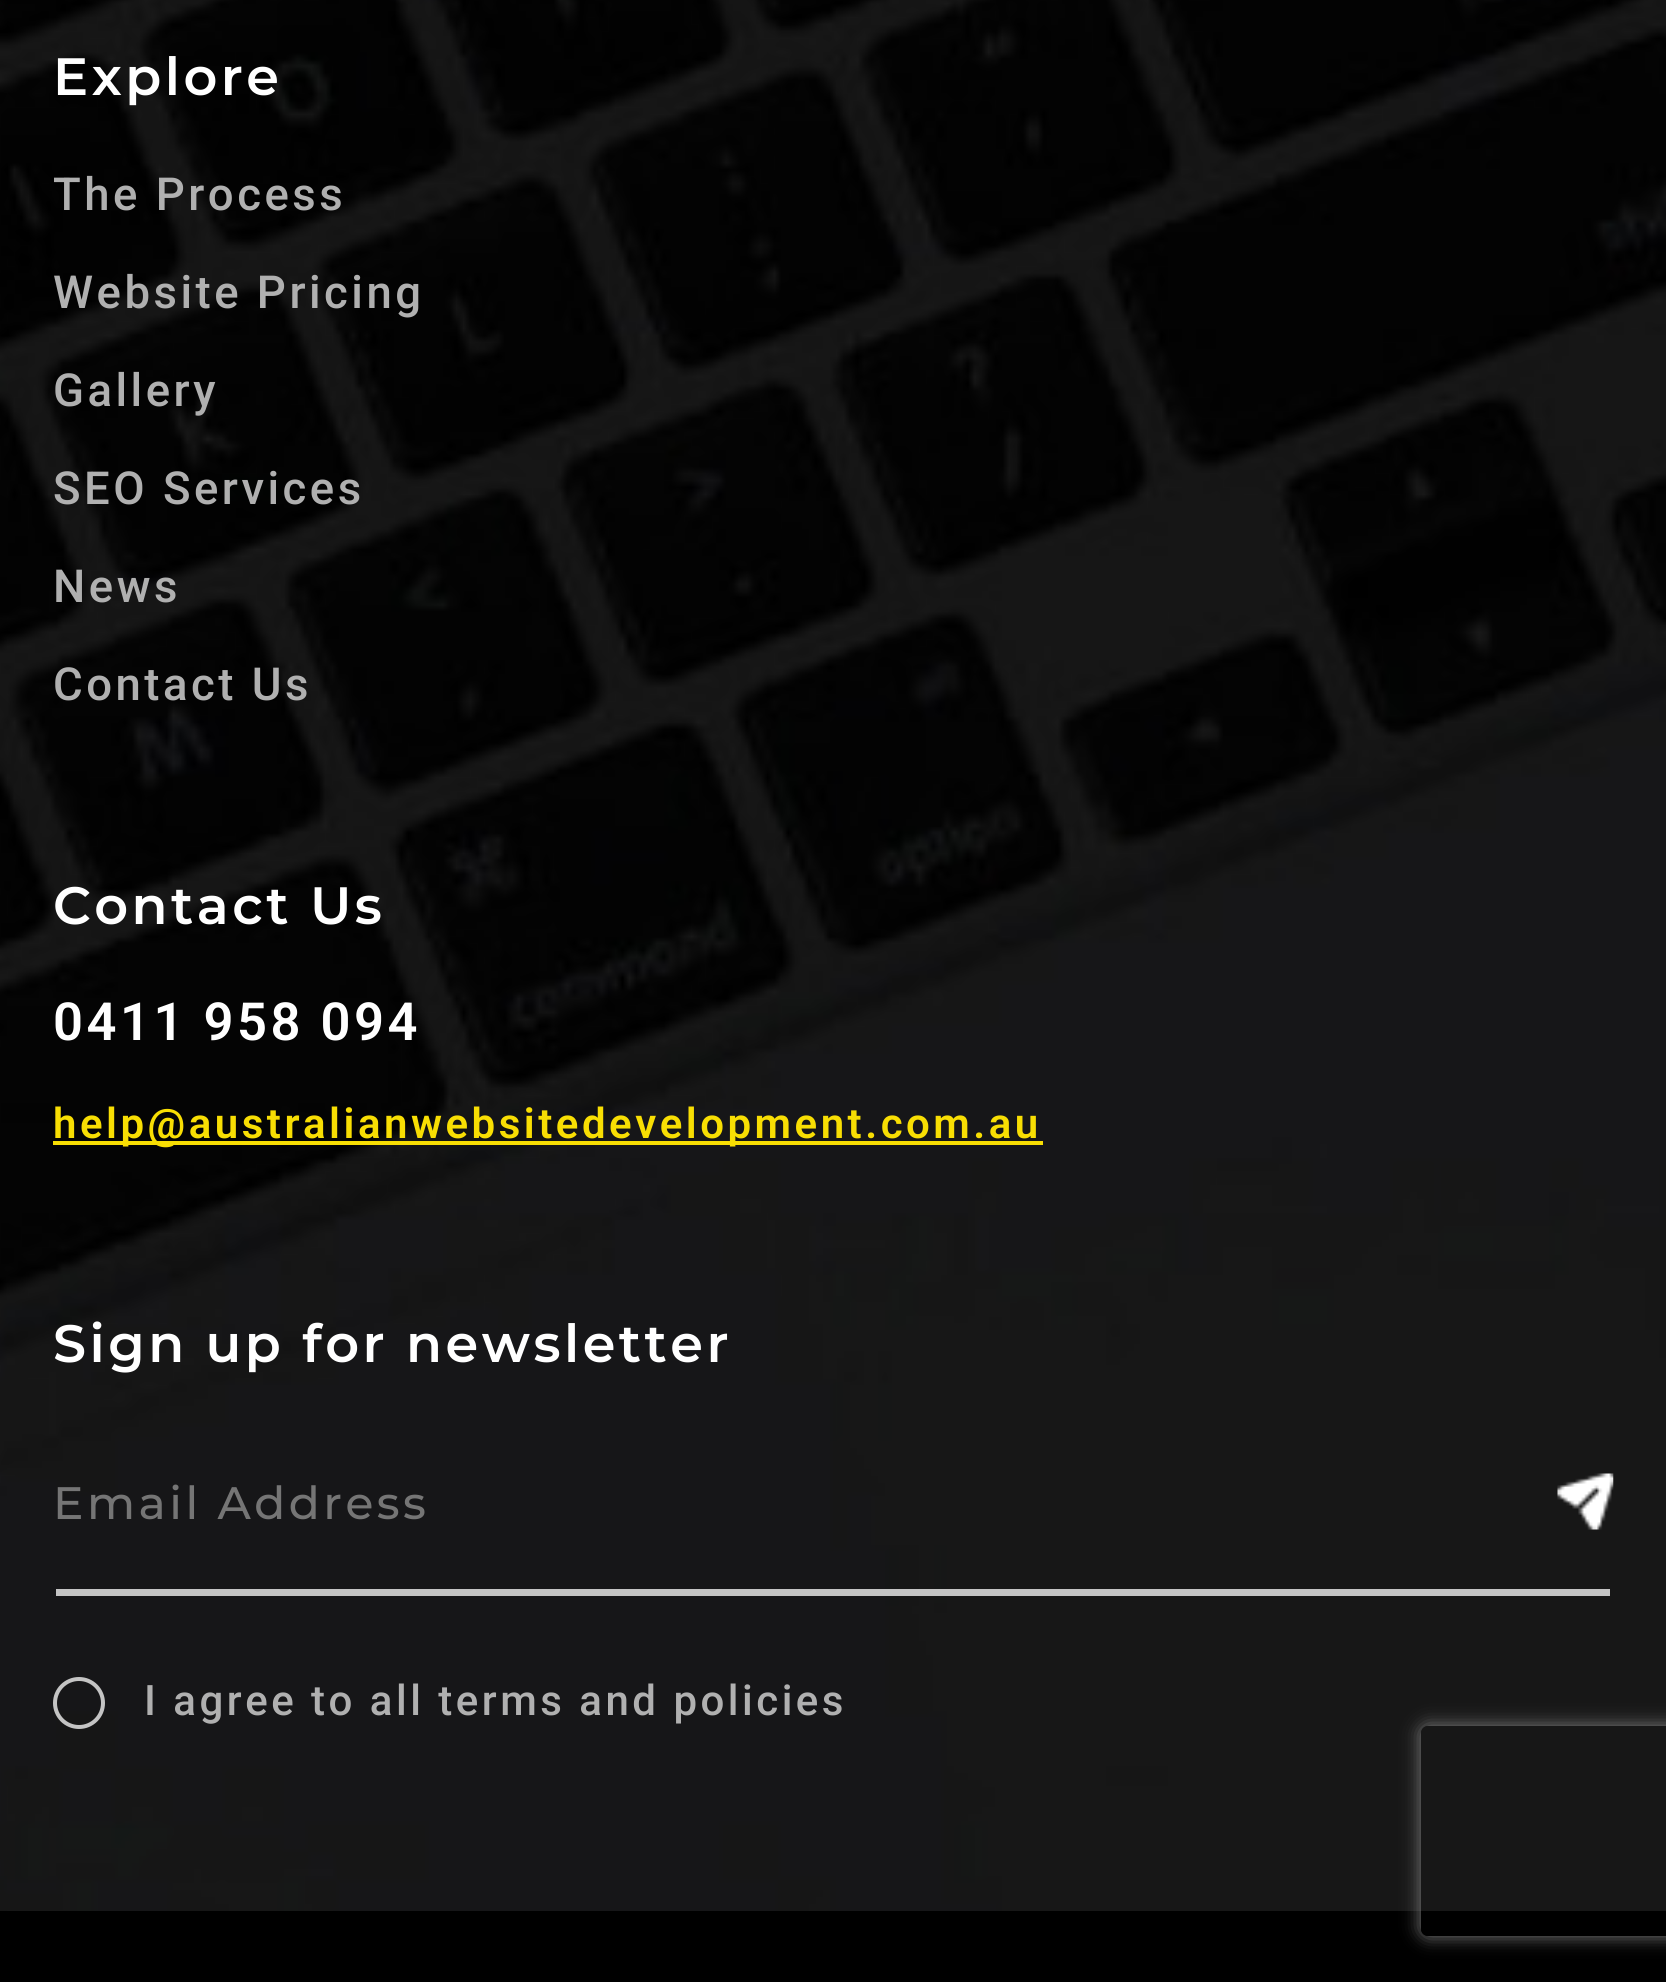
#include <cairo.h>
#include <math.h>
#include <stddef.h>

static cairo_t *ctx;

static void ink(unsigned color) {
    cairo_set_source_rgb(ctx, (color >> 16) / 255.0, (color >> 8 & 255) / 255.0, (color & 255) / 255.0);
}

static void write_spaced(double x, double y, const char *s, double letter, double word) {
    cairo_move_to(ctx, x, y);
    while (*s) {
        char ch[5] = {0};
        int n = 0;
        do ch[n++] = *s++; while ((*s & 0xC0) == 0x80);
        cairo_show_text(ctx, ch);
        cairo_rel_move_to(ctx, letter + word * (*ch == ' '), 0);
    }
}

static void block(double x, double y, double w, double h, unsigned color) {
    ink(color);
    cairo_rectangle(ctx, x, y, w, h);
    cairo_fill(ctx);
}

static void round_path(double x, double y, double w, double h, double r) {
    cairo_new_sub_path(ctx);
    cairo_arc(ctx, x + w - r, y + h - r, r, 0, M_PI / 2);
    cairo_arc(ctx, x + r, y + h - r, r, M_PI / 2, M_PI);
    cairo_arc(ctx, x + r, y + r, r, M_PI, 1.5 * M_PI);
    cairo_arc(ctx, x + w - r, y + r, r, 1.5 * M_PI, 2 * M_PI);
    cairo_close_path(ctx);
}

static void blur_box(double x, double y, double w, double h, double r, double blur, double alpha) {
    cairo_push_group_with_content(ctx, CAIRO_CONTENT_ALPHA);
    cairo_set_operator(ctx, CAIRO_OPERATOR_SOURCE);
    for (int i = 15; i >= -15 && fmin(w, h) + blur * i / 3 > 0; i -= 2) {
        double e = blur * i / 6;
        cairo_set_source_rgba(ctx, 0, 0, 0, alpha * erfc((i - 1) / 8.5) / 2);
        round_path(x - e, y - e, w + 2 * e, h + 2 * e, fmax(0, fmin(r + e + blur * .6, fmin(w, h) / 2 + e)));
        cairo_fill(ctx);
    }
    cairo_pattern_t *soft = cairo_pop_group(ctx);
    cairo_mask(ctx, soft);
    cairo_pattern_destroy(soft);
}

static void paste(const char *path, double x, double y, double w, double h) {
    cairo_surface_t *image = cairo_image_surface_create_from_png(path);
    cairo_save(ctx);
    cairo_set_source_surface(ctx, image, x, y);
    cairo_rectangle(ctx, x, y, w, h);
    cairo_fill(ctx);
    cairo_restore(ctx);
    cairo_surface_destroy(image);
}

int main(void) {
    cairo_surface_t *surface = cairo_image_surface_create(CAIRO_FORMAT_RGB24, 1666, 1982);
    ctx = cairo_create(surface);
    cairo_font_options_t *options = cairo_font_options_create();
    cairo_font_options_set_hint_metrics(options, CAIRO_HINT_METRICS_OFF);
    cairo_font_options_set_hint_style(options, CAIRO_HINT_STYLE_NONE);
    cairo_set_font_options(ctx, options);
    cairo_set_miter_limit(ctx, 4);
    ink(0xffffff);
    cairo_paint(ctx);
    paste("pic1.png", 0, 0, 1666, 1911);
    cairo_select_font_face(ctx, "Montserrat SemiBold", CAIRO_FONT_SLANT_NORMAL, CAIRO_FONT_WEIGHT_NORMAL);
    cairo_set_font_size(ctx, 52.5);
    ink(0xffffff);
    write_spaced(53, 95, "Explore", 3.5, 0);
    cairo_select_font_face(ctx, "Roboto Medium", CAIRO_FONT_SLANT_NORMAL, CAIRO_FONT_WEIGHT_NORMAL);
    cairo_set_font_size(ctx, 45.5);
    ink(0xb0b0b0);
    write_spaced(53, 210, "The Process", 3.5, 0);
    write_spaced(53, 308, "Website Pricing", 3.5, 0);
    write_spaced(53, 406, "Gallery", 3.5, 0);
    write_spaced(53, 504, "SEO Services", 3.5, 0);
    write_spaced(53, 602, "News", 3.5, 0);
    write_spaced(53, 700, "Contact Us", 3.5, 0);
    cairo_select_font_face(ctx, "Montserrat SemiBold", CAIRO_FONT_SLANT_NORMAL, CAIRO_FONT_WEIGHT_NORMAL);
    cairo_set_font_size(ctx, 52.5);
    ink(0xffffff);
    write_spaced(53, 924, "Contact Us", 3.5, 0);
    cairo_select_font_face(ctx, "Roboto SemiBold", CAIRO_FONT_SLANT_NORMAL, CAIRO_FONT_WEIGHT_NORMAL);
    write_spaced(53, 1040, "0411 958 094", 3.5, 0);
    block(53, 1141, 990, 4, 0xf8de03);
    cairo_set_font_size(ctx, 42);
    write_spaced(53, 1138, "help@australianwebsitedevelopment.com.au", 3.5, 0);
    cairo_select_font_face(ctx, "Montserrat SemiBold", CAIRO_FONT_SLANT_NORMAL, CAIRO_FONT_WEIGHT_NORMAL);
    cairo_set_font_size(ctx, 52.5);
    ink(0xffffff);
    write_spaced(53, 1362, "Sign up for newsletter", 3.5, 0);
    paste("pic2.png", 1557, 1473, 57, 57);
    block(56, 1589, 1554, 7, 0xc4c4c4);
    cairo_select_font_face(ctx, "Montserrat Medium", CAIRO_FONT_SLANT_NORMAL, CAIRO_FONT_WEIGHT_NORMAL);
    cairo_set_font_size(ctx, 45.5);
    ink(0x757575);
    write_spaced(53, 1519, "Email Address", 3.5, 0);
    cairo_new_path(ctx);
    cairo_arc(ctx, 79, 1703, 24, 0, 2 * M_PI);
    ink(0xc4c4c4);
    cairo_set_line_width(ctx, 4);
    cairo_stroke(ctx);
    cairo_select_font_face(ctx, "Roboto Medium", CAIRO_FONT_SLANT_NORMAL, CAIRO_FONT_WEIGHT_NORMAL);
    cairo_set_font_size(ctx, 42);
    ink(0xb0b0b0);
    write_spaced(144, 1715, "I agree to all terms and policies", 3.5, 0);
    block(0, 1911, 1666, 71, 0x000000);
    cairo_save(ctx);
    cairo_set_fill_rule(ctx, CAIRO_FILL_RULE_EVEN_ODD);
    cairo_new_path(ctx);
    cairo_move_to(ctx, 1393, 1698);
    cairo_line_to(ctx, 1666, 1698);
    cairo_line_to(ctx, 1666, 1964);
    cairo_line_to(ctx, 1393, 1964);
    cairo_close_path(ctx);
    cairo_move_to(ctx, 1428, 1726);
    cairo_line_to(ctx, 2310, 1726);
    cairo_curve_to(ctx, 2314, 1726, 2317, 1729, 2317, 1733);
    cairo_line_to(ctx, 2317, 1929);
    cairo_curve_to(ctx, 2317, 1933, 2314, 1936, 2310, 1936);
    cairo_line_to(ctx, 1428, 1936);
    cairo_curve_to(ctx, 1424, 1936, 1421, 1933, 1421, 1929);
    cairo_line_to(ctx, 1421, 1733);
    cairo_curve_to(ctx, 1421, 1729, 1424, 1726, 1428, 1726);
    cairo_close_path(ctx);
    cairo_clip(ctx);
    ink(0x808080);
    blur_box(1421, 1726, 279, 210, 7, 9, 1);
    cairo_restore(ctx);
    cairo_surface_write_to_png(surface, "screenshot.png");
    cairo_font_options_destroy(options);
    cairo_destroy(ctx);
    cairo_surface_destroy(surface);
    return 0;
}
